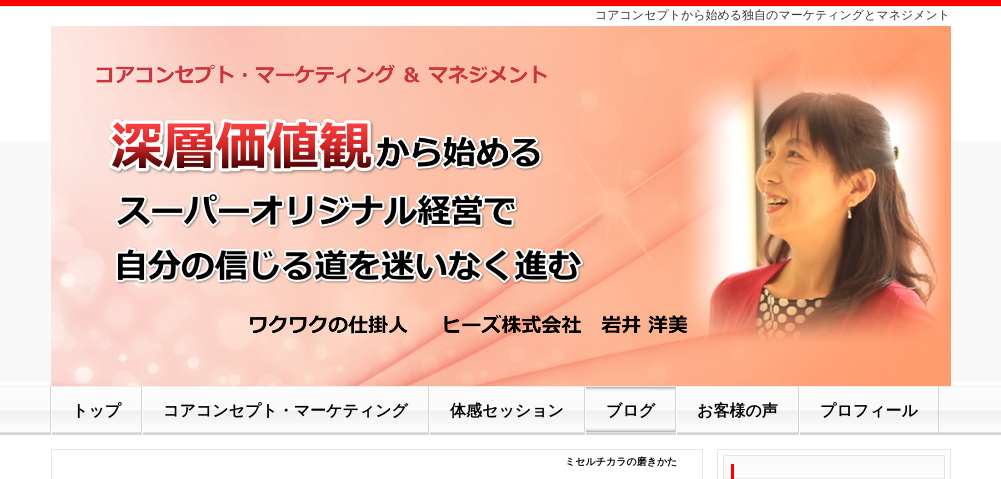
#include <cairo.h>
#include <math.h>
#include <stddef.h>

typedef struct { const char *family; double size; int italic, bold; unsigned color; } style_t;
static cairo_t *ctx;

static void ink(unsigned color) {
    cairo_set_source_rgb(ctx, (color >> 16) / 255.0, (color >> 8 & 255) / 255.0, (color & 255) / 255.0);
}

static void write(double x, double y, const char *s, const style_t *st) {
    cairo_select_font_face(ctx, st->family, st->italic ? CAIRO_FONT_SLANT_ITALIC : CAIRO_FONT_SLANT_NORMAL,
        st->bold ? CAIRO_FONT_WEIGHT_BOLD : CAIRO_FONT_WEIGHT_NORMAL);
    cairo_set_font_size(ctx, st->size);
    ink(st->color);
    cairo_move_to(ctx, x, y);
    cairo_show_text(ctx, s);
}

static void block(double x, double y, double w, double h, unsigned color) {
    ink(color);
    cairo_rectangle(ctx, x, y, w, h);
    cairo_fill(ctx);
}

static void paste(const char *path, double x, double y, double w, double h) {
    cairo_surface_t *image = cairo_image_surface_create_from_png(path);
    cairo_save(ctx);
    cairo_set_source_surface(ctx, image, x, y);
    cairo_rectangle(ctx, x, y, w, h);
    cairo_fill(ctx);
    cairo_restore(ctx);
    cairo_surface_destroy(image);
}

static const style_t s1 = {"WenQuanYi Zen Hei Medium", 12, 0, 0, 0x333333};
static const style_t s2 = {"WenQuanYi Zen Hei", 16, 0, 1, 0x000000};
static const style_t s3 = {"WenQuanYi Zen Hei", 10, 0, 1, 0x000000};

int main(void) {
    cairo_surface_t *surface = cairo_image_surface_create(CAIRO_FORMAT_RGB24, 1001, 479);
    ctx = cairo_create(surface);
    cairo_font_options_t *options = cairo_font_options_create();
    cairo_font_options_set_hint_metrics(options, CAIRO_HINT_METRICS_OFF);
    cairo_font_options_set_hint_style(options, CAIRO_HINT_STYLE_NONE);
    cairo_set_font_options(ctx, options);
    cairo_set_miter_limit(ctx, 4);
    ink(0xffffff);
    cairo_paint(ctx);
    paste("pic1.png", 0, 0, 1001, 382);
    write(595, 19, "コアコンセプトから始める独自のマーケティングとマネジメント", &s1);
    paste("pic2.png", 51, 26, 900, 360);
    paste("pic3.png", 0, 386, 1001, 49);
    block(50, 386, 1, 49, 0xd5d5d5);
    block(141, 386, 1, 49, 0xd5d5d5);
    block(51, 386, 1, 49, 0xffffff);
    write(72, 416, "トップ", &s2);
    block(428, 386, 1, 49, 0xd5d5d5);
    block(142, 386, 1, 49, 0xffffff);
    write(163, 416, "コアコンセプト・マーケティング", &s2);
    block(584, 386, 1, 49, 0xd5d5d5);
    block(429, 386, 1, 49, 0xffffff);
    write(450, 416, "体感セッション", &s2);
    paste("pic4.png", 586, 387, 89, 45);
    block(675, 386, 1, 49, 0xd5d5d5);
    block(585, 386, 1, 49, 0xffffff);
    write(606, 416, "ブログ", &s2);
    block(798, 386, 1, 49, 0xd5d5d5);
    block(676, 386, 1, 49, 0xffffff);
    write(697, 416, "お客様の声", &s2);
    block(938, 386, 1, 49, 0xd5d5d5);
    block(799, 386, 1, 49, 0xffffff);
    write(820, 416, "プロフィール", &s2);
    cairo_rectangle(ctx, 51.5, 449.5, 651, 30);
    ink(0xe7e7e7);
    cairo_set_line_width(ctx, 1);
    cairo_stroke(ctx);
    write(565, 465, "ミセルチカラの磨きかた", &s3);
    cairo_rectangle(ctx, 717.5, 449.5, 233, 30);
    ink(0xe7e7e7);
    cairo_stroke(ctx);
    paste("pic5.png", 723, 455, 222, 24);
    cairo_surface_write_to_png(surface, "screenshot.png");
    cairo_font_options_destroy(options);
    cairo_destroy(ctx);
    cairo_surface_destroy(surface);
    return 0;
}
